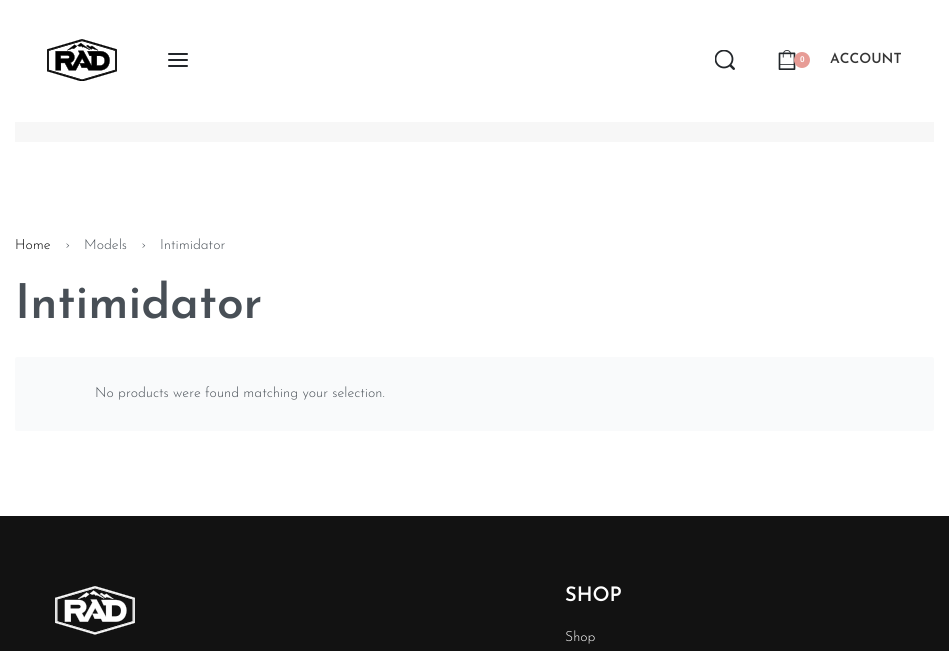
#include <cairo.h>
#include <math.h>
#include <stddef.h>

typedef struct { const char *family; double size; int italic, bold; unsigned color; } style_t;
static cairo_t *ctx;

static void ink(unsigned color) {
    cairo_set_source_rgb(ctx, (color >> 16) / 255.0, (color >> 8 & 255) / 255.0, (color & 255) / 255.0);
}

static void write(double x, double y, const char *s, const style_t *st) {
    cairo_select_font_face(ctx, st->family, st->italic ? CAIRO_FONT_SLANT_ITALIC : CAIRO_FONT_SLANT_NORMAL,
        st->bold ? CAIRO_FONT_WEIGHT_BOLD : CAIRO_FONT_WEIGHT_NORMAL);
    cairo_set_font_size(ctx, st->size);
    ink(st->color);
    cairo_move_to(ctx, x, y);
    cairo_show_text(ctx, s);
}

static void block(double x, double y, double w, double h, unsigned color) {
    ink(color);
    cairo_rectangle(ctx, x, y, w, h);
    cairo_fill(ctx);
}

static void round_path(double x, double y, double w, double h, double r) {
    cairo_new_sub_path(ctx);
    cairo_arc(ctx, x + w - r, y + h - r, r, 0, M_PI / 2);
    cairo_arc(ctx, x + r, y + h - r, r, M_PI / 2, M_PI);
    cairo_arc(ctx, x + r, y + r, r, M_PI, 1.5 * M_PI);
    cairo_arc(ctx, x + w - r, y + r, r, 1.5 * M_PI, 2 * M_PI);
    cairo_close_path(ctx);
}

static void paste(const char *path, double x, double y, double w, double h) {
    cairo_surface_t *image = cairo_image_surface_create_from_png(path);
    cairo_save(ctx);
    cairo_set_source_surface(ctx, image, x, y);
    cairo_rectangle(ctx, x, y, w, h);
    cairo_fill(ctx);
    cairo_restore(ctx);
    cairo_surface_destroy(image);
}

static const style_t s1 = {"Roboto SemiBold", 8, 0, 0, 0xffffff};
static const style_t s2 = {"Josefin Sans SemiBold", 14, 0, 0, 0x353535};
static const style_t s3 = {"Josefin Sans Light", 14, 0, 0, 0x000000};
static const style_t s4 = {"Josefin Sans Light", 14, 0, 0, 0x484f56};
static const style_t s5 = {"Josefin Sans SemiBold", 48, 0, 0, 0x484f56};
static const style_t s6 = {"Josefin Sans SemiBold", 20, 0, 0, 0xffffff};
static const style_t s7 = {"Josefin Sans Light", 14, 0, 0, 0xffffff};

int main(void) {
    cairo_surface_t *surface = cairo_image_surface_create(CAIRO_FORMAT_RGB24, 949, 651);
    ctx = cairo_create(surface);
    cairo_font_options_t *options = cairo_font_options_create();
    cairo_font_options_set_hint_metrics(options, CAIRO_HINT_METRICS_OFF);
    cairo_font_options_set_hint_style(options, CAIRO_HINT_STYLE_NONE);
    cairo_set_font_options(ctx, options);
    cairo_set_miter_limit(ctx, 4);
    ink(0xffffff);
    cairo_paint(ctx);
    paste("pic1.png", 47, 39, 70, 42);
    ink(0x22262a);
    round_path(168, 53, 20, 2, 1);
    cairo_fill(ctx);
    round_path(168, 59, 20, 2, 1);
    cairo_fill(ctx);
    round_path(168, 65, 20, 2, 1);
    cairo_fill(ctx);
    paste("pic2.png", 715, 50, 20, 20);
    paste("pic3.png", 778, 50, 18, 20);
    ink(0xe79c96);
    cairo_arc(ctx, 802, 60, 8, 0, 2 * M_PI);
    cairo_fill(ctx);
    write(800, 62, "0", &s1);
    write(830, 63, "ACCOUNT", &s2);
    block(15, 122, 919, 20, 0xf7f7f7);
    write(15, 249, "Home", &s3);
    write(65, 249, "›", &s4);
    write(84, 249, "Models", &s4);
    write(141, 249, "›", &s4);
    write(160, 249, "Intimidator", &s4);
    write(15, 318, "Intimidator", &s5);
    ink(0xf9fafb);
    round_path(15, 357, 919, 74, 2);
    cairo_fill(ctx);
    write(95, 397, "No products were found matching your selection.", &s4);
    block(0, 516, 949, 135, 0x121212);
    paste("pic4.png", 55, 586, 80, 49);
    write(565, 601, "SHOP", &s6);
    write(565, 641, "Shop", &s7);
    cairo_surface_write_to_png(surface, "screenshot.png");
    cairo_font_options_destroy(options);
    cairo_destroy(ctx);
    cairo_surface_destroy(surface);
    return 0;
}
